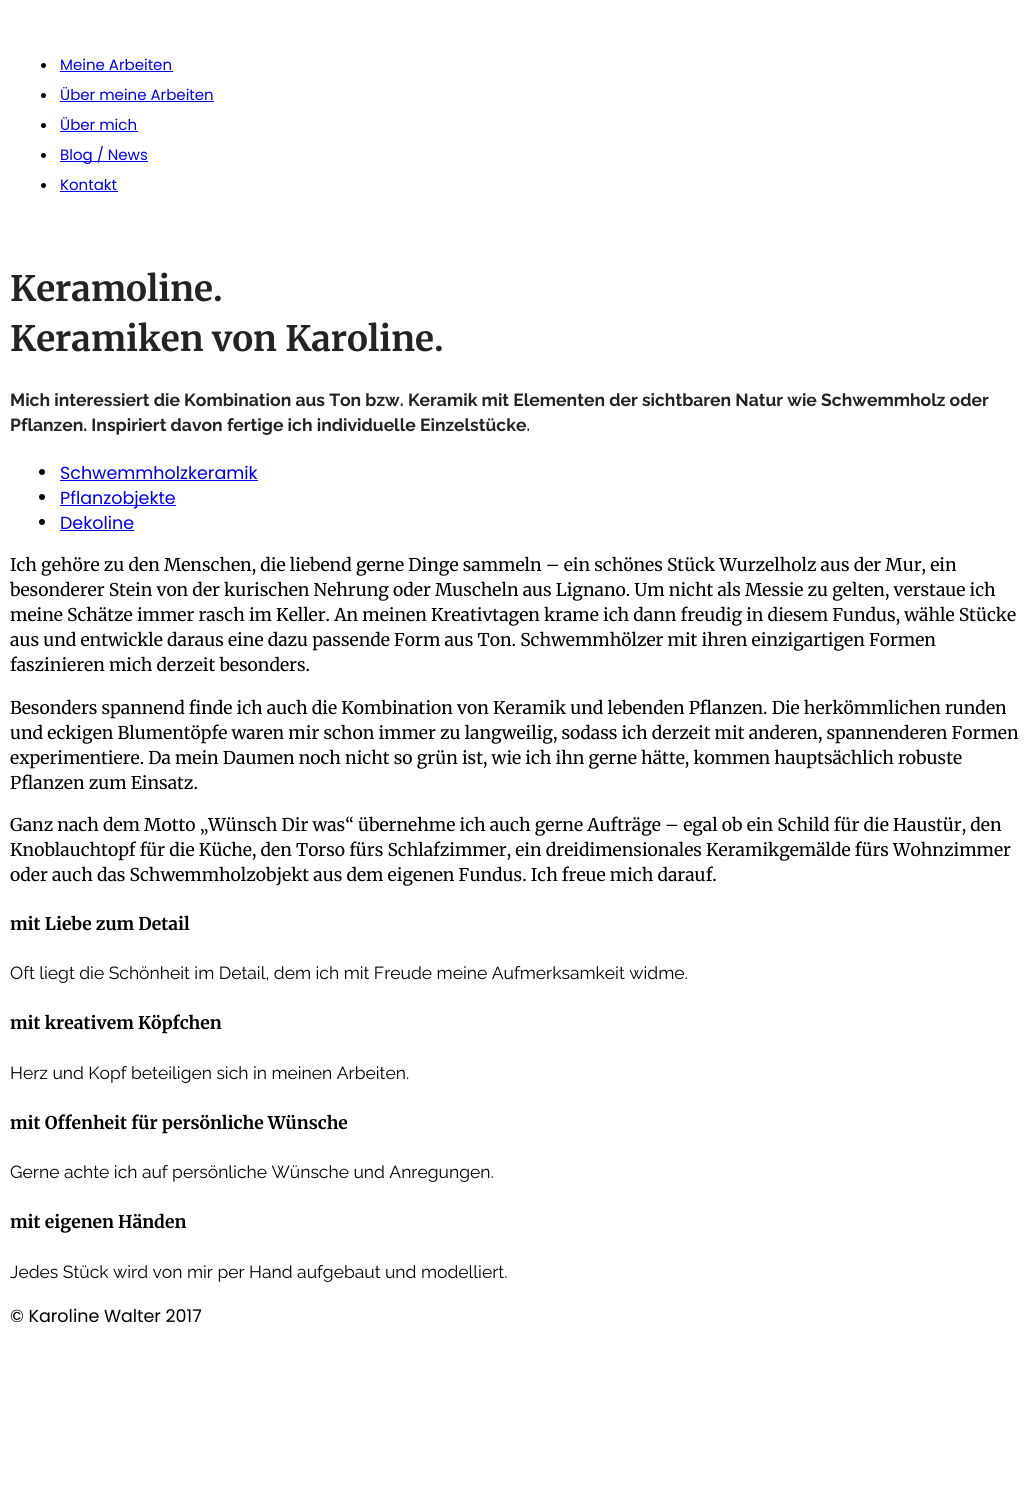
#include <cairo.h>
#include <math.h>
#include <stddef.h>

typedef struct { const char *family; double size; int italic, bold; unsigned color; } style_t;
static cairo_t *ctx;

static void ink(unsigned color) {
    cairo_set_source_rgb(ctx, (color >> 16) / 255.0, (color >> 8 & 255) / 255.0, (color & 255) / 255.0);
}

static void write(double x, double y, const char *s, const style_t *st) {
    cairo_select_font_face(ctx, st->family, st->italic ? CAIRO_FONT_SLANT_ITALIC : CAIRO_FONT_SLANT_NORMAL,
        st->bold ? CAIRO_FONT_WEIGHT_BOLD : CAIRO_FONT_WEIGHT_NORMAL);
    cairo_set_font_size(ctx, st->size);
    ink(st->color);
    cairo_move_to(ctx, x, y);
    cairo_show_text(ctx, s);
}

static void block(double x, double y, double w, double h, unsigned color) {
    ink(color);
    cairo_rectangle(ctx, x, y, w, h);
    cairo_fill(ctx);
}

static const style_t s1 = {"Poppins", 15, 0, 0, 0x0000ee};
static const style_t s2 = {"Merriweather", 35, 0, 1, 0x232323};
static const style_t s3 = {"Raleway", 17.5, 0, 1, 0x232323};
static const style_t s4 = {"Poppins", 17.5, 0, 0, 0x0000ee};
static const style_t s5 = {"Merriweather", 17.5, 0, 0, 0x000000};
static const style_t s6 = {"Merriweather", 17.5, 0, 1, 0x000000};
static const style_t s7 = {"Raleway", 17.5, 0, 0, 0x000000};
static const style_t s8 = {"Poppins", 17.5, 0, 0, 0x000000};

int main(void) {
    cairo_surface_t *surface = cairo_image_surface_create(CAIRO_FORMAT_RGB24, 1032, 1496);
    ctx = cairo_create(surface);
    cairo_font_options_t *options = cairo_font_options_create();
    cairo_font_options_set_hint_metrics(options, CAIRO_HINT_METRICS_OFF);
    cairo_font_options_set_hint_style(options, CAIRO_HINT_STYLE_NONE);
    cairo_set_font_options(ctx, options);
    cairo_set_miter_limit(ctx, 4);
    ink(0xffffff);
    cairo_paint(ctx);
    ink(0x000000);
    cairo_arc(ctx, 43.5, 65.5, 2.5, 0, 2 * M_PI);
    cairo_fill(ctx);
    write(60, 70, "Meine Arbeiten", &s1);
    block(60, 71, 113, 1, 0x0000ee);
    ink(0x000000);
    cairo_new_path(ctx);
    cairo_arc(ctx, 43.5, 95.5, 2.5, 0, 2 * M_PI);
    cairo_fill(ctx);
    write(60, 100, "Über meine Arbeiten", &s1);
    block(60, 101, 154, 1, 0x0000ee);
    ink(0x000000);
    cairo_new_path(ctx);
    cairo_arc(ctx, 43.5, 125.5, 2.5, 0, 2 * M_PI);
    cairo_fill(ctx);
    write(60, 130, "Über mich", &s1);
    block(60, 131, 78, 1, 0x0000ee);
    ink(0x000000);
    cairo_new_path(ctx);
    cairo_arc(ctx, 43.5, 155.5, 2.5, 0, 2 * M_PI);
    cairo_fill(ctx);
    block(60, 161, 88, 1, 0x0000ee);
    write(60, 160, "Blog / News", &s1);
    ink(0x000000);
    cairo_new_path(ctx);
    cairo_arc(ctx, 43.5, 185.5, 2.5, 0, 2 * M_PI);
    cairo_fill(ctx);
    write(60, 190, "Kontakt", &s1);
    block(60, 191, 58, 1, 0x0000ee);
    write(10, 301, "Keramoline.", &s2);
    write(10, 351, "Keramiken von Karoline.", &s2);
    write(10, 406, "Mich interessiert die Kombination aus Ton bzw. Keramik mit Elementen der sichtbaren Natur wie Schwemmholz oder", &s3);
    write(10, 431, "Pflanzen. Inspiriert davon fertige ich individuelle Einzelstücke.", &s3);
    ink(0x000000);
    cairo_new_path(ctx);
    cairo_arc(ctx, 42, 472, 3, 0, 2 * M_PI);
    cairo_fill(ctx);
    write(60, 479, "Schwemmholzkeramik", &s4);
    block(60, 480, 198, 1, 0x0000ee);
    ink(0x000000);
    cairo_new_path(ctx);
    cairo_arc(ctx, 42, 497, 3, 0, 2 * M_PI);
    cairo_fill(ctx);
    block(60, 505, 116, 1, 0x0000ee);
    write(60, 504, "Pflanzobjekte", &s4);
    ink(0x000000);
    cairo_new_path(ctx);
    cairo_arc(ctx, 42, 522, 3, 0, 2 * M_PI);
    cairo_fill(ctx);
    write(60, 529, "Dekoline", &s4);
    block(60, 530, 74, 1, 0x0000ee);
    write(10, 571, "Ich gehöre zu den Menschen, die liebend gerne Dinge sammeln – ein schönes Stück Wurzelholz aus der Mur, ein", &s5);
    write(10, 596, "besonderer Stein von der kurischen Nehrung oder Muscheln aus Lignano. Um nicht als Messie zu gelten, verstaue ich", &s5);
    write(10, 621, "meine Schätze immer rasch im Keller. An meinen Kreativtagen krame ich dann freudig in diesem Fundus, wähle Stücke", &s5);
    write(10, 646, "aus und entwickle daraus eine dazu passende Form aus Ton. Schwemmhölzer mit ihren einzigartigen Formen", &s5);
    write(10, 671, "faszinieren mich derzeit besonders.", &s5);
    write(10, 714, "Besonders spannend finde ich auch die Kombination von Keramik und lebenden Pflanzen. Die herkömmlichen runden", &s5);
    write(10, 739, "und eckigen Blumentöpfe waren mir schon immer zu langweilig, sodass ich derzeit mit anderen, spannenderen Formen", &s5);
    write(10, 764, "experimentiere. Da mein Daumen noch nicht so grün ist, wie ich ihn gerne hätte, kommen hauptsächlich robuste", &s5);
    write(10, 789, "Pflanzen zum Einsatz.", &s5);
    write(10, 831, "Ganz nach dem Motto „Wünsch Dir was“ übernehme ich auch gerne Aufträge – egal ob ein Schild für die Haustür, den", &s5);
    write(10, 856, "Knoblauchtopf für die Küche, den Torso fürs Schlafzimmer, ein dreidimensionales Keramikgemälde fürs Wohnzimmer", &s5);
    write(10, 881, "oder auch das Schwemmholzobjekt aus dem eigenen Fundus. Ich freue mich darauf.", &s5);
    write(10, 930, "mit Liebe zum Detail", &s6);
    write(10, 979, "Oft liegt die Schönheit im Detail, dem ich mit Freude meine Aufmerksamkeit widme.", &s7);
    write(10, 1029, "mit kreativem Köpfchen", &s6);
    write(10, 1079, "Herz und Kopf beteiligen sich in meinen Arbeiten.", &s7);
    write(10, 1129, "mit Offenheit für persönliche Wünsche", &s6);
    write(10, 1178, "Gerne achte ich auf persönliche Wünsche und Anregungen.", &s7);
    write(10, 1228, "mit eigenen Händen", &s6);
    write(10, 1278, "Jedes Stück wird von mir per Hand aufgebaut und modelliert.", &s7);
    write(10, 1322, "© Karoline Walter 2017", &s8);
    cairo_surface_write_to_png(surface, "screenshot.png");
    cairo_font_options_destroy(options);
    cairo_destroy(ctx);
    cairo_surface_destroy(surface);
    return 0;
}
